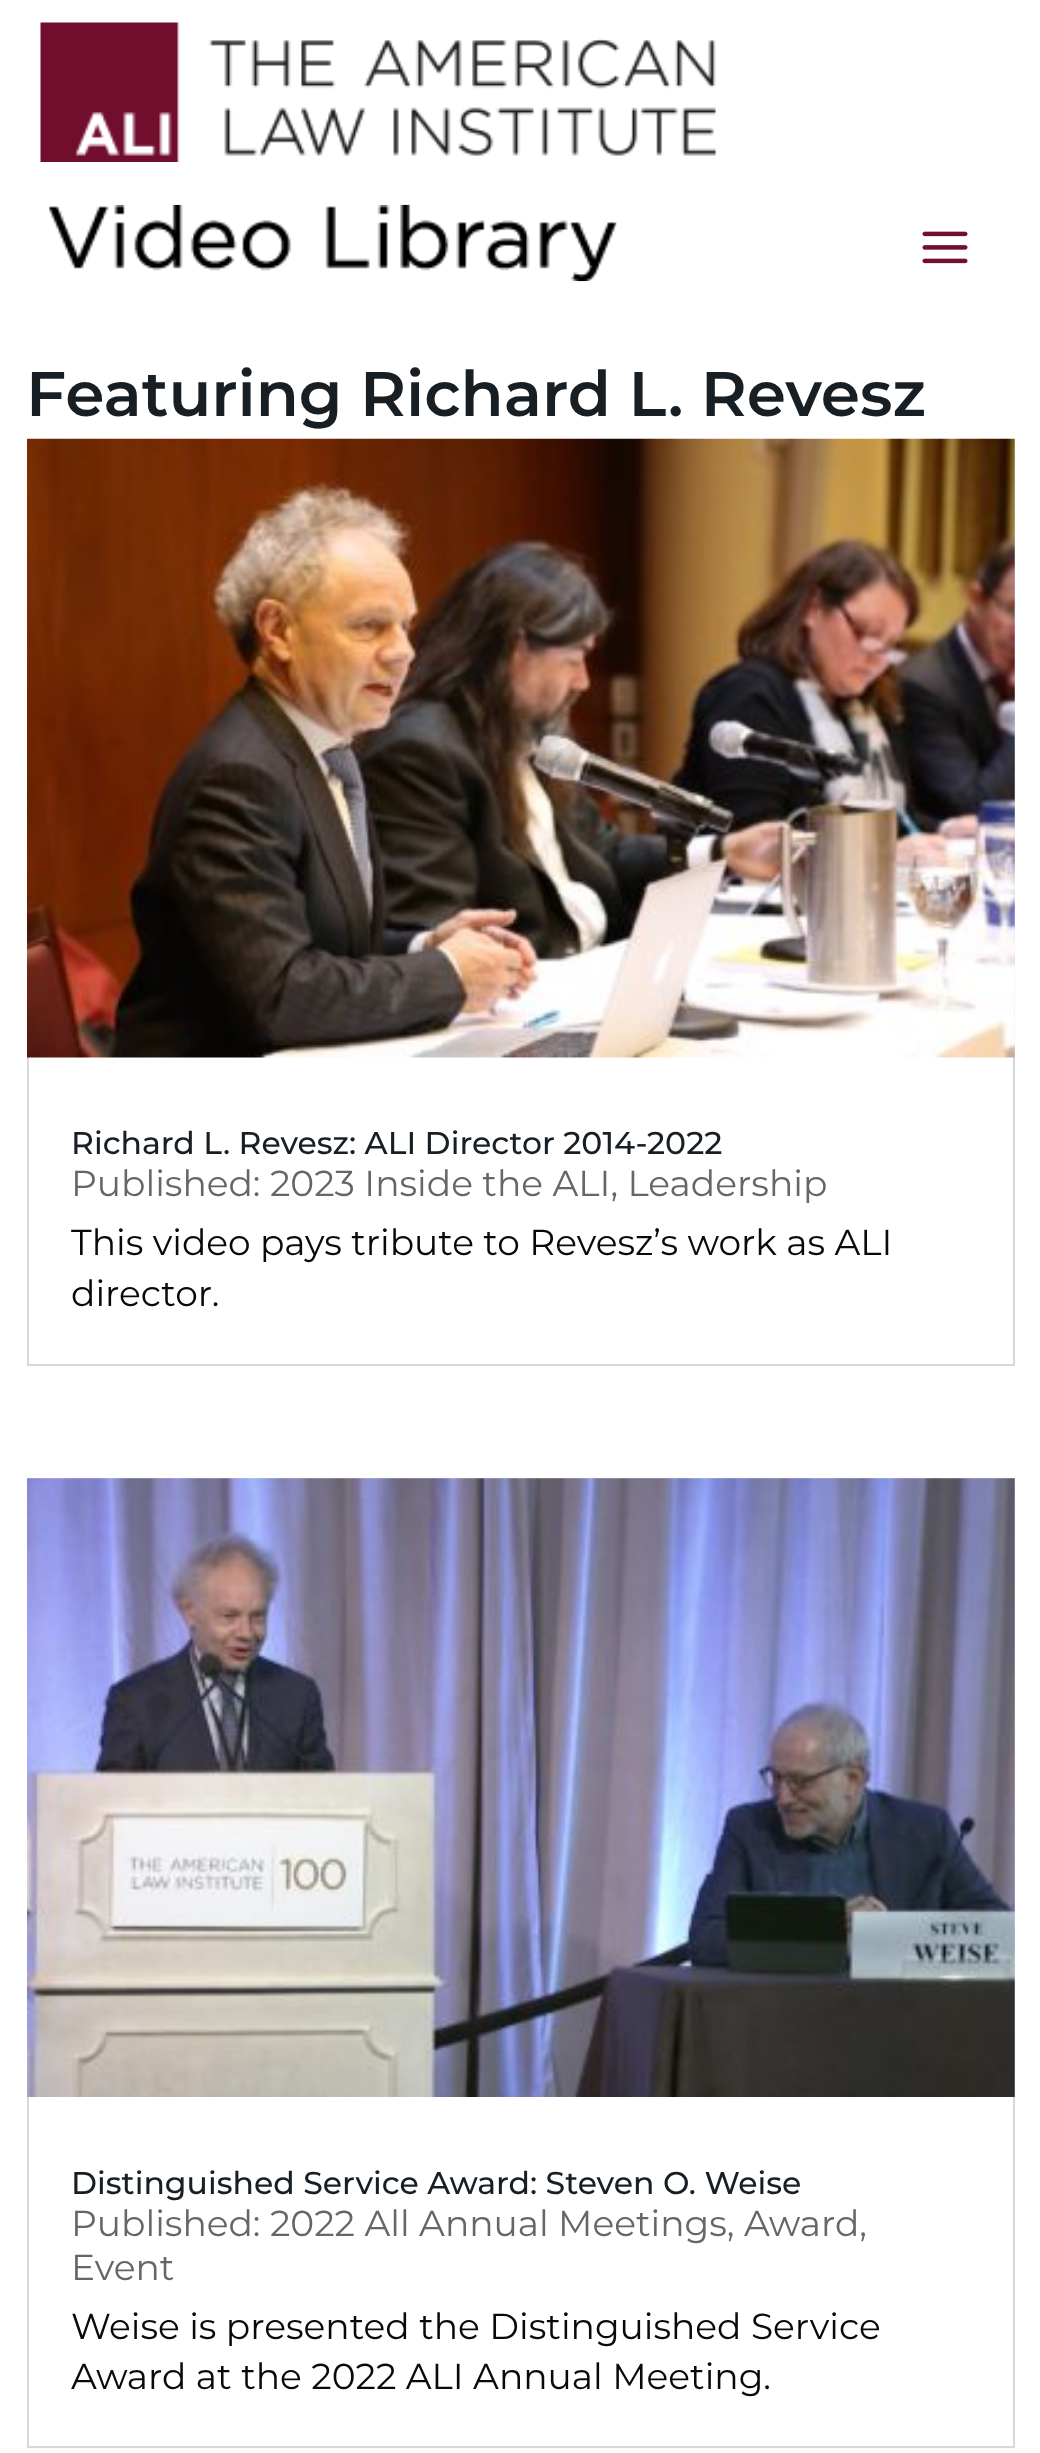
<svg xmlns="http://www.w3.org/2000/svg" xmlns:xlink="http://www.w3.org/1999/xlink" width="1040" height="2453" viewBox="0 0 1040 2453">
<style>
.cls-1{font:100 63px Montserrat;fill:#171f24}
.cls-2{font:100 31.5px 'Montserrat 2';fill:#171f24}
.cls-3{font:100 36px 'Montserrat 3';fill:#666666}
.cls-4{font:100 36px 'Montserrat 3';fill:#090909}
</style>
<rect width="100%" height="100%" fill="#ffffff"/>
<image xlink:href="image0.png" x="40" y="22" width="676" height="140"/>
<image xlink:href="image1.png" x="47" y="204" width="570" height="78"/>
<image xlink:href="image2.png" x="922" y="231" width="46" height="33"/>
<rect fill="none" stroke="#d8d8d8" stroke-width="2" x="28" y="440" width="986" height="925"/>
<image xlink:href="image3.png" x="27" y="438" width="988" height="620"/>
<rect fill="none" stroke="#d8d8d8" stroke-width="2" x="28" y="1479" width="986" height="968"/>
<image xlink:href="image4.png" x="27" y="1478" width="988" height="619"/>
<text class="cls-1" x="26" y="416">Featuring Richard L. Revesz</text>
<text class="cls-2" x="71" y="1154">Richard L. Revesz: ALI Director 2014-2022</text>
<text class="cls-3" x="71" y="1196">Published: 2023 Inside the ALI, Leadership</text>
<text class="cls-4"><tspan x="71" y="1255">This video pays tribute to Revesz’s work as ALI</tspan><tspan x="71" y="1306">director.</tspan></text>
<text class="cls-2" x="71" y="2194">Distinguished Service Award: Steven O. Weise</text>
<text class="cls-3"><tspan x="71" y="2236">Published: 2022 All Annual Meetings, Award,</tspan><tspan x="71" y="2280">Event</tspan></text>
<text class="cls-4"><tspan x="71" y="2339">Weise is presented the Distinguished Service</tspan><tspan x="71" y="2389">Award at the 2022 ALI Annual Meeting.</tspan></text>
</svg>
